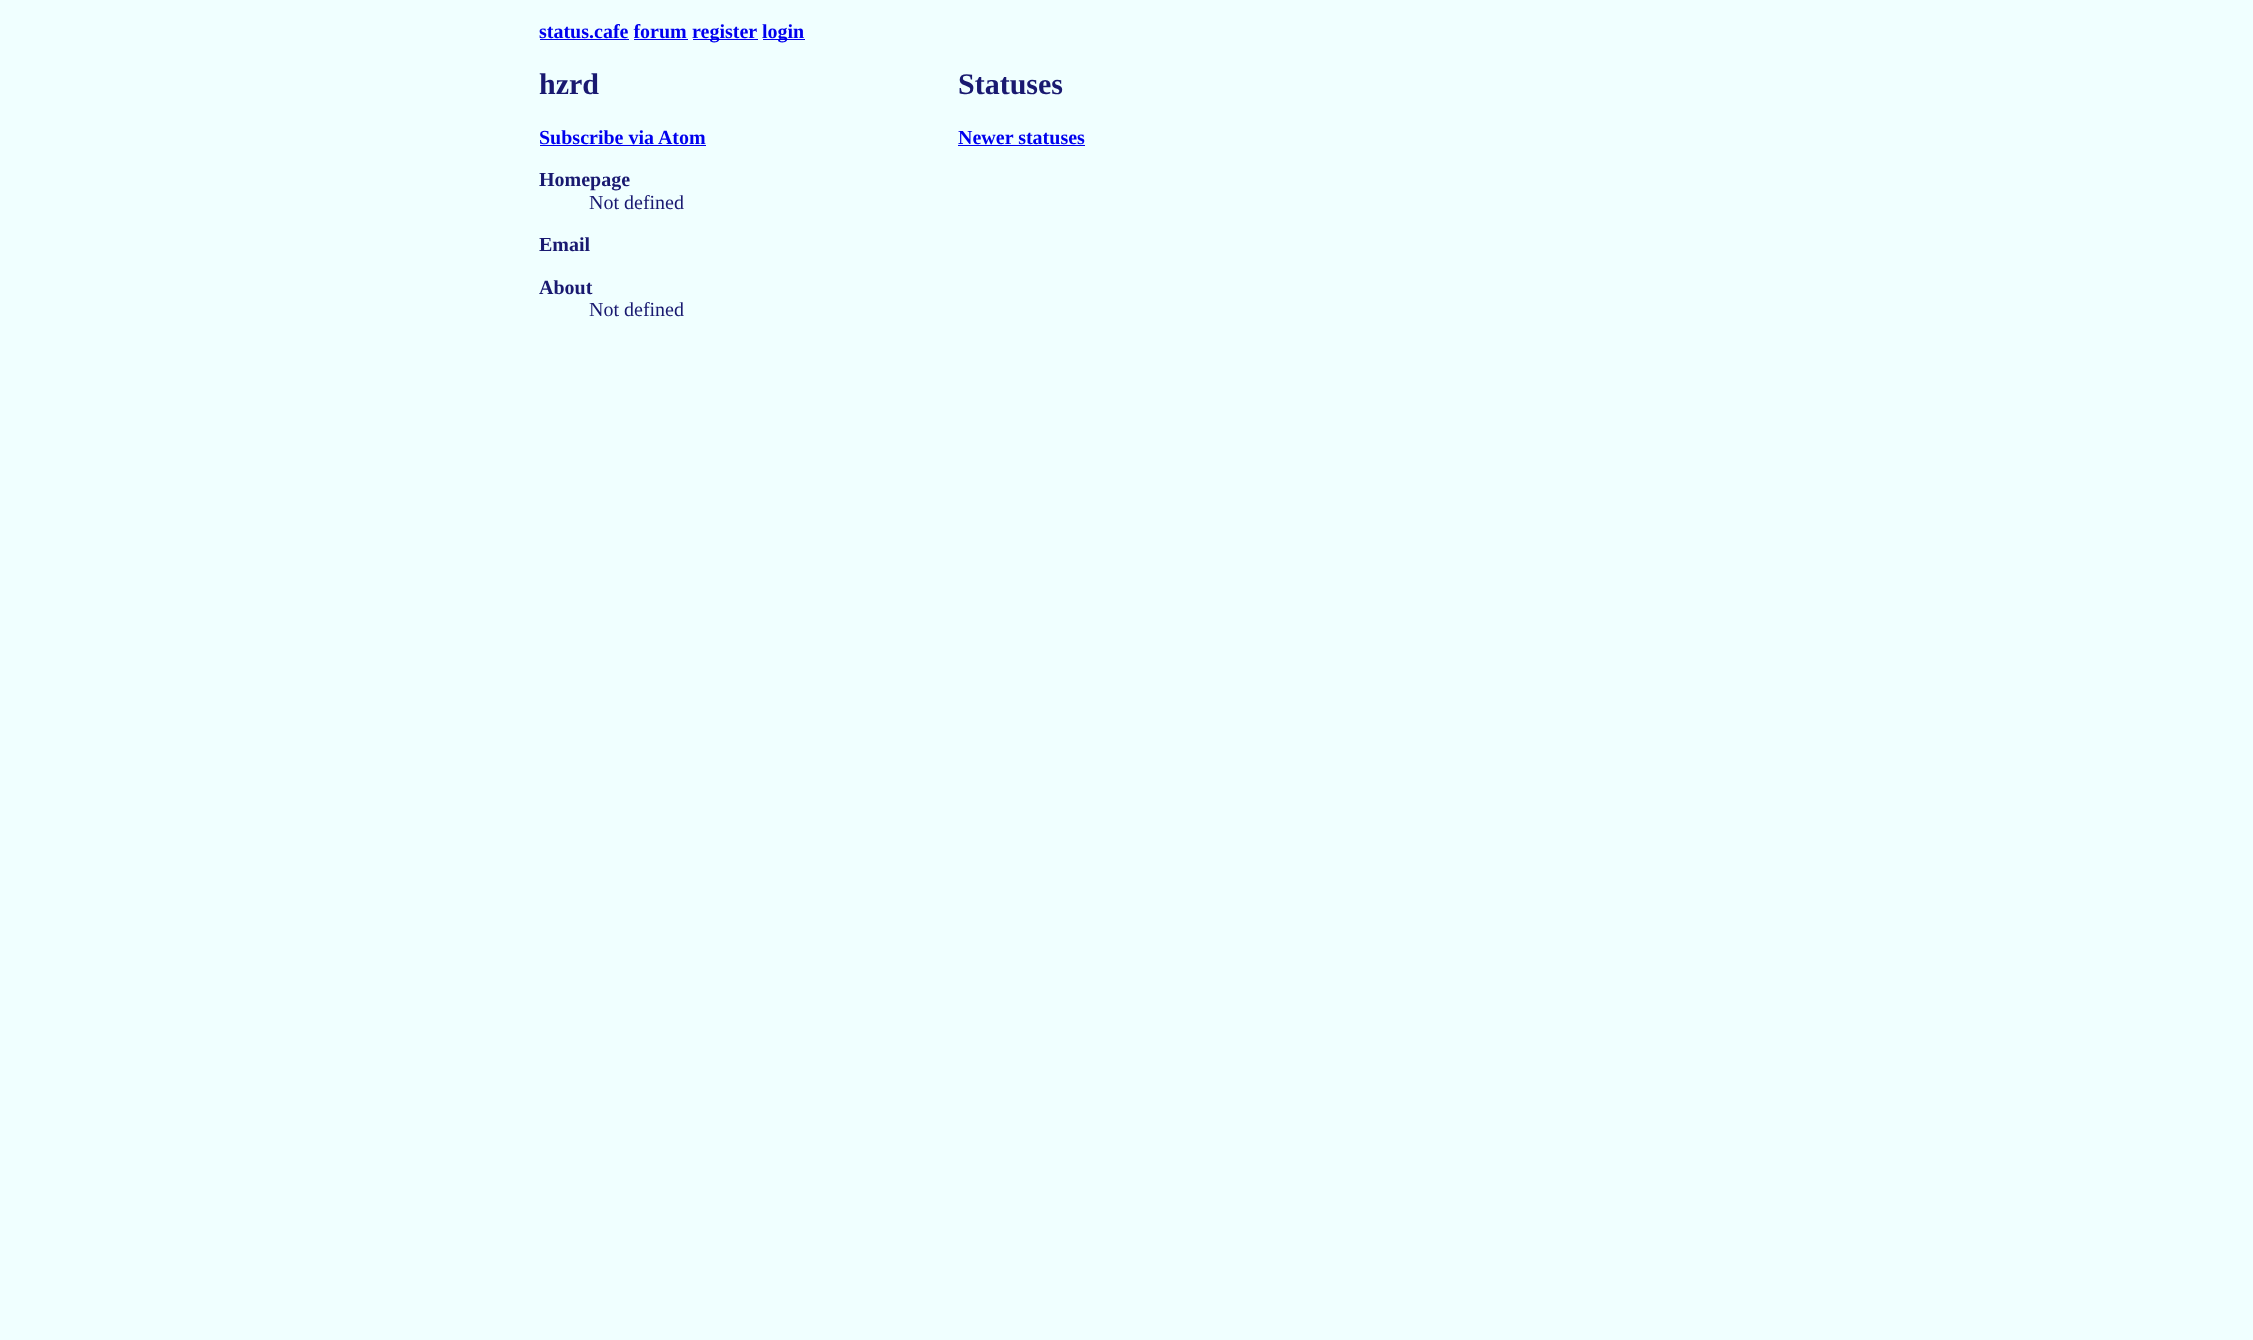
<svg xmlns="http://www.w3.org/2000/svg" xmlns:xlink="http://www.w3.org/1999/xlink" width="2253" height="1340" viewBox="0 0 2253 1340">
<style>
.cls-1{font:bold 20px Liberation Serif;fill:#0000ee}
.cls-2{font:bold 30px Liberation Serif;fill:#191970}
.cls-3{font:bold 20px Liberation Serif;fill:#191970}
.cls-4{font:20px Liberation Serif;fill:#191970}
</style>
<rect width="100%" height="100%" fill="#f0ffff"/>
<rect fill="#0000ee" x="540" y="39" width="89" height="1"/>
<rect fill="#0000ee" x="693" y="39" width="65" height="1"/>
<rect fill="#0000ee" x="763" y="39" width="42" height="1"/>
<rect fill="#0000ee" x="634" y="39" width="54" height="1"/>
<rect fill="#0000ee" x="540" y="145" width="166" height="1"/>
<rect fill="#0000ee" x="958" y="145" width="127" height="1"/>
<text class="cls-1" x="539" y="38">status.cafe forum</text>
<text class="cls-1" x="692" y="38">register</text>
<text class="cls-1" x="762" y="38">login</text>
<text class="cls-2" x="539" y="94">hzrd</text>
<text class="cls-1" x="539" y="144">Subscribe via Atom</text>
<text class="cls-3" x="539" y="186">Homepage</text>
<text class="cls-4" x="589" y="209">Not defined</text>
<text class="cls-3" x="539" y="251">Email</text>
<text class="cls-3" x="539" y="294">About</text>
<text class="cls-4" x="589" y="316">Not defined</text>
<text class="cls-2" x="958" y="94">Statuses</text>
<text class="cls-1" x="958" y="144">Newer statuses</text>
</svg>
